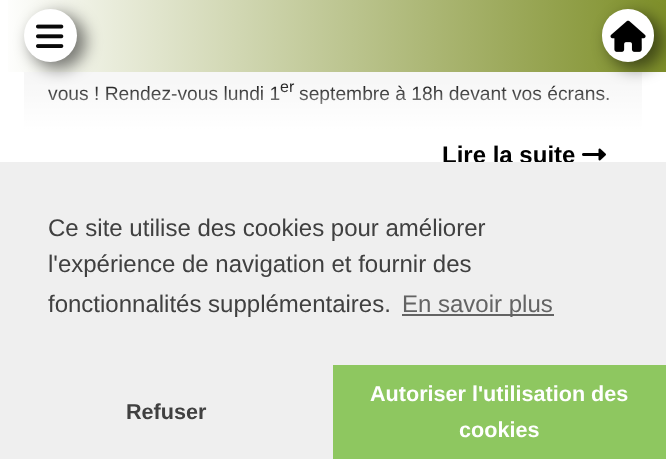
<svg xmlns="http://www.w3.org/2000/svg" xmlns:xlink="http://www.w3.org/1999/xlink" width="666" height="459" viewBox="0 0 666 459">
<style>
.cls-1{font:19.25px Liberation Sans;fill:#090909}
.cls-2{font:16px Liberation Sans;fill:#090909}
.cls-3{font:bold 24px Liberation Sans;fill:#000000}
.cls-4{font:24px Liberation Sans;fill:#404040}
.cls-5{font:24px Liberation Sans;fill:#636363}
.cls-6{font:bold 21.6px Liberation Sans;fill:#404040}
.cls-7{font:bold 21.6px Liberation Sans;fill:#ffffff}
</style>
<defs>
<linearGradient id="g1" gradientUnits="userSpaceOnUse" x1="0" y1="36" x2="666" y2="36"><stop offset="0" stop-color="#ffffff"/><stop offset="1" stop-color="#7e8f29"/></linearGradient>
<linearGradient id="g2" gradientUnits="userSpaceOnUse" x1="333" y1="129" x2="333" y2="81"><stop offset="0" stop-color="#ffffff"/><stop offset="1" stop-color="#ffffff" stop-opacity="0"/></linearGradient>
</defs>
<rect width="100%" height="100%" fill="#ffffff"/>
<rect fill="url(#g1)" x="8" y="0" width="658" height="72"/>
<rect fill="#f7f7f7" x="24" y="72" width="618" height="57"/>
<image xlink:href="image2.png" x="582" y="148" width="24" height="13"/>
<text class="cls-1" x="48" y="100">vous ! Rendez-vous lundi 1</text>
<text class="cls-2" x="280" y="92">er</text>
<text class="cls-1" x="299" y="100">septembre à 18h devant vos écrans.</text>
<rect fill="url(#g2)" x="24" y="83" width="618" height="46"/>
<rect fill="#000000" fill-opacity="0.5" filter="blur(8px)" x="608" y="14" width="55" height="55" rx="27.5"/>
<rect fill="#ffffff" x="602" y="9" width="52" height="53" rx="26"/>
<image xlink:href="image1.png" x="610" y="20" width="36" height="32"/>
<rect fill="#000000" fill-opacity="0.5" filter="blur(8px)" x="30" y="14" width="56" height="55" rx="27.5"/>
<circle fill="#ffffff" cx="50.5" cy="35.5" r="26.5"/>
<image xlink:href="image0.png" x="36" y="24" width="28" height="24"/>
<text class="cls-3" x="442" y="163">Lire la suite</text>
<rect fill="#efefef" x="0" y="162" width="666" height="297"/>
<text class="cls-4"><tspan x="48" y="236">Ce site utilise des cookies pour améliorer</tspan><tspan x="48" y="272">l'expérience de navigation et fournir des</tspan><tspan x="48" y="312">fonctionnalités supplémentaires.</tspan></text>
<rect fill="#636363" x="402" y="314" width="152" height="2"/>
<text class="cls-5" x="402" y="312">En savoir plus</text>
<text class="cls-6" x="126" y="419">Refuser</text>
<rect fill="#8ec760" x="333" y="365" width="333" height="94"/>
<text class="cls-7" x="370" y="401">Autoriser l'utilisation des</text>
<text class="cls-7" x="459" y="437">cookies</text>
</svg>
